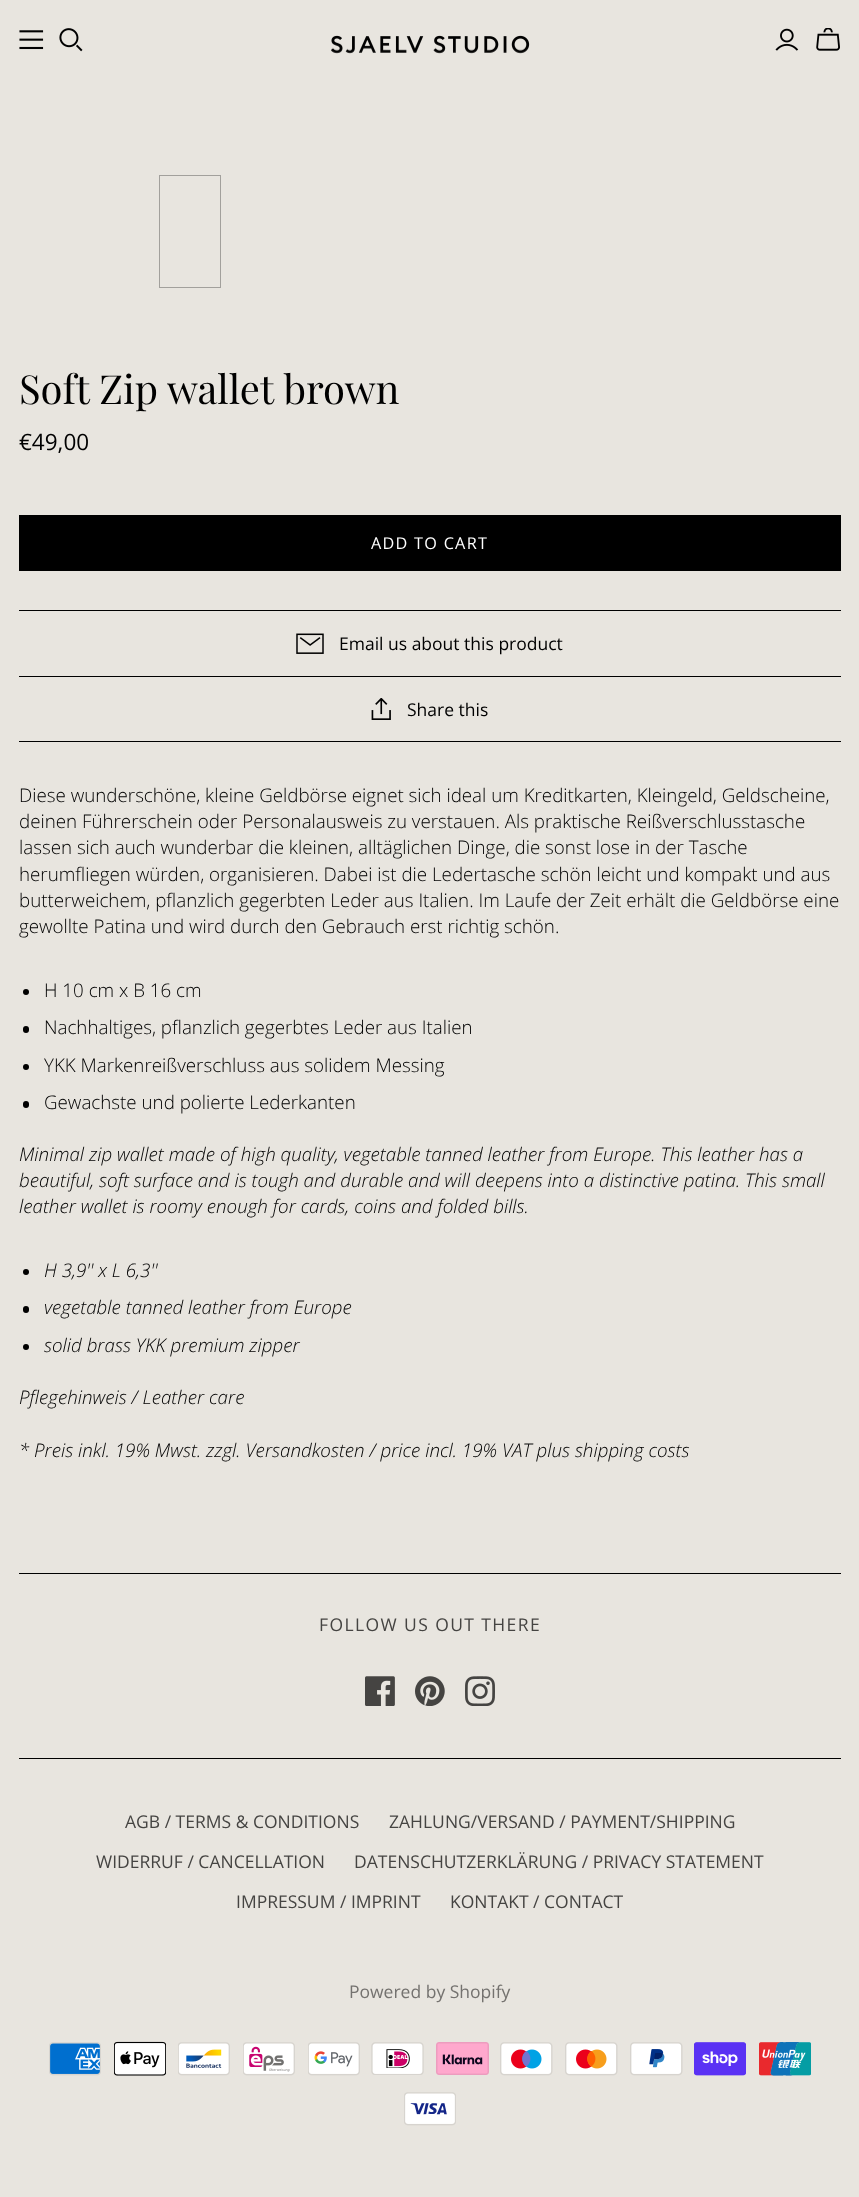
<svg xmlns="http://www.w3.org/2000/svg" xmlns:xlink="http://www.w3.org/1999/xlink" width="859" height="2197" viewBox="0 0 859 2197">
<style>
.cls-1{font:40px Playfair Display;fill:#000000}
.cls-2{font:22.5px Open Sans;fill:#000000}
.cls-3{font:16.25px Open Sans;letter-spacing:1.25px;fill:#ffffff}
.cls-4{font:17.5px Open Sans;fill:#000000}
.cls-5{font:300 18.75px Open Sans;fill:#000000}
.cls-6{font:italic 300 18.75px Open Sans;fill:#000000}
.cls-7{font:17.5px Open Sans;letter-spacing:1.4px;fill:#454442}
.cls-8{font:17.5px Open Sans;fill:#454442}
.cls-9{font:17.5px Open Sans;fill:#74726f}
</style>
<rect width="100%" height="100%" fill="#e8e5df"/>
<image xlink:href="image0.png" x="19" y="30" width="25" height="20"/>
<image xlink:href="image1.png" x="59" y="28" width="24" height="24"/>
<image xlink:href="image2.png" x="775" y="28" width="24" height="23"/>
<image xlink:href="image3.png" x="816" y="28" width="24" height="23"/>
<image xlink:href="image4.png" x="331" y="35" width="199" height="19"/>
<rect fill="none" stroke="#a2a09c" x="159.5" y="175.5" width="61" height="112"/>
<rect fill="#000000" x="19" y="515" width="822" height="56"/>
<rect fill="#000000" x="19" y="610" width="822" height="1"/>
<rect fill="#000000" x="19" y="741" width="822" height="1"/>
<image xlink:href="image5.png" x="296" y="633" width="28" height="21"/>
<rect fill="#000000" x="19" y="676" width="822" height="1"/>
<image xlink:href="image6.png" x="371" y="698" width="20" height="22"/>
<circle fill="#000000" cx="26" cy="992" r="3"/>
<rect fill="#000000" x="23" y="1026" width="6" height="7" rx="3"/>
<circle fill="#000000" cx="26" cy="1067" r="3"/>
<rect fill="#000000" x="23" y="1101" width="6" height="7" rx="3"/>
<circle fill="#000000" cx="26" cy="1272" r="3"/>
<rect fill="#000000" x="23" y="1306" width="6" height="7" rx="3"/>
<circle fill="#000000" cx="26" cy="1347" r="3"/>
<rect fill="#000000" x="19" y="1573" width="822" height="1"/>
<rect fill="#000000" x="19" y="1758" width="822" height="1"/>
<image xlink:href="image7.png" x="365" y="1676" width="30" height="30"/>
<image xlink:href="image8.png" x="415" y="1676" width="30" height="30"/>
<image xlink:href="image9.png" x="465" y="1676" width="30" height="30"/>
<image xlink:href="image10.png" x="49" y="2042" width="52" height="34"/>
<image xlink:href="image11.png" x="114" y="2041" width="52" height="35"/>
<image xlink:href="image12.png" x="178" y="2042" width="52" height="34"/>
<image xlink:href="image13.png" x="243" y="2042" width="52" height="34"/>
<image xlink:href="image14.png" x="308" y="2042" width="52" height="34"/>
<image xlink:href="image15.png" x="371" y="2042" width="53" height="33"/>
<image xlink:href="image16.png" x="436" y="2042" width="53" height="33"/>
<image xlink:href="image17.png" x="500" y="2042" width="53" height="34"/>
<image xlink:href="image18.png" x="565" y="2042" width="53" height="34"/>
<image xlink:href="image19.png" x="630" y="2042" width="53" height="34"/>
<image xlink:href="image20.png" x="694" y="2042" width="52" height="34"/>
<image xlink:href="image21.png" x="759" y="2042" width="52" height="34"/>
<image xlink:href="image22.png" x="404" y="2092" width="52" height="34"/>
<text class="cls-1" x="19" y="404">Soft Zip wallet brown</text>
<text class="cls-2" x="19" y="450">€49,00</text>
<text class="cls-3" x="371" y="549">ADD TO CART</text>
<text class="cls-4" x="339" y="650">Email us about this product</text>
<text class="cls-4" x="407" y="716">Share this</text>
<text class="cls-5"><tspan x="19" y="802">Diese wunderschöne, kleine Geldbörse eignet sich ideal um Kreditkarten, Kleingeld, Geldscheine,</tspan><tspan x="19" y="828">deinen Führerschein oder Personalausweis zu verstauen. Als praktische Reißverschlusstasche</tspan><tspan x="19" y="854">lassen sich auch wunderbar die kleinen, alltäglichen Dinge, die sonst lose in der Tasche</tspan><tspan x="19" y="881">herumfliegen würden, organisieren. Dabei ist die Ledertasche schön leicht und kompakt und aus</tspan><tspan x="19" y="907">butterweichem, pflanzlich gegerbten Leder aus Italien. Im Laufe der Zeit erhält die Geldbörse eine</tspan><tspan x="19" y="933">gewollte Patina und wird durch den Gebrauch erst richtig schön.</tspan></text>
<text class="cls-5"><tspan x="44" y="997">H 10 cm x B 16 cm</tspan><tspan x="44" y="1034">Nachhaltiges, pflanzlich gegerbtes Leder aus Italien</tspan></text>
<text class="cls-5"><tspan x="44" y="1072">YKK Markenreißverschluss aus solidem Messing</tspan><tspan x="44" y="1109">Gewachste und polierte Lederkanten</tspan></text>
<text class="cls-6"><tspan x="19" y="1161">Minimal zip wallet made of high quality, vegetable tanned leather from Europe. This leather has a</tspan><tspan x="19" y="1187">beautiful, soft surface and is tough and durable and will deepens into a distinctive patina. This small</tspan><tspan x="19" y="1213">leather wallet is roomy enough for cards, coins and folded bills.</tspan></text>
<text class="cls-6"><tspan x="44" y="1277">H 3,9'' x L 6,3''</tspan><tspan x="44" y="1314">vegetable tanned leather from Europe</tspan></text>
<text class="cls-6" x="44" y="1352">solid brass YKK premium zipper</text>
<text class="cls-6" x="19" y="1404">Pflegehinweis / Leather care</text>
<text class="cls-6" x="19" y="1457">* Preis inkl. 19% Mwst. zzgl. Versandkosten / price incl. 19% VAT plus shipping costs</text>
<text class="cls-7" x="319" y="1631">FOLLOW US OUT THERE</text>
<text class="cls-8" x="125" y="1828">AGB / TERMS &amp; CONDITIONS</text>
<text class="cls-8" x="389" y="1828">ZAHLUNG/VERSAND / PAYMENT/SHIPPING</text>
<text class="cls-8" x="96" y="1868">WIDERRUF / CANCELLATION</text>
<text class="cls-8" x="354" y="1868">DATENSCHUTZERKLÄRUNG / PRIVACY STATEMENT</text>
<text class="cls-8" x="236" y="1908">IMPRESSUM / IMPRINT</text>
<text class="cls-8" x="450" y="1908">KONTAKT / CONTACT</text>
<text class="cls-9" x="349" y="1998">Powered by Shopify</text>
</svg>
